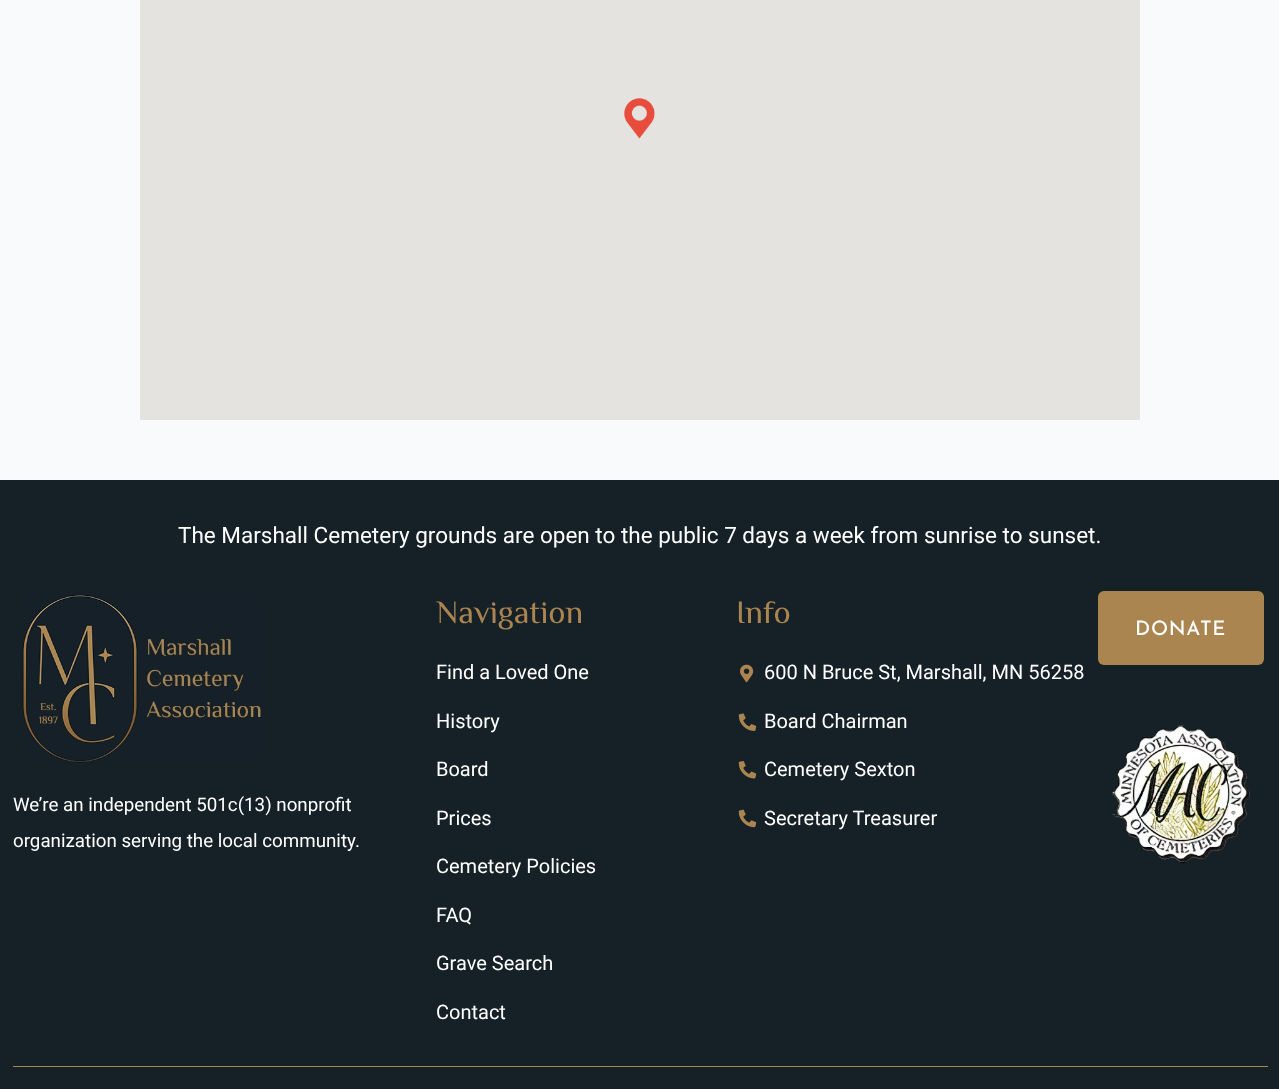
<svg xmlns="http://www.w3.org/2000/svg" xmlns:xlink="http://www.w3.org/1999/xlink" width="1279" height="1089" viewBox="0 0 1279 1089">
<style>
.cls-1{font:22.5px Roboto;fill:#ffffff}
.cls-2{font:32.5px ZCOOL XiaoWei;fill:#aa854f}
.cls-3{font:20px Roboto;fill:#ffffff}
.cls-4{font:500 20px Josefin Sans;letter-spacing:0.75px;fill:#ffffff}
.cls-5{font:18.75px Roboto;fill:#ffffff}
</style>
<rect width="100%" height="100%" fill="#f9fafb"/>
<rect fill="#e5e3df" x="140" y="0" width="1000" height="420"/>
<image xlink:href="image0.png" x="624" y="98" width="31" height="41"/>
<rect fill="#162027" x="0" y="480" width="1279" height="609"/>
<image xlink:href="image1.png" x="740" y="664" width="14" height="19"/>
<image xlink:href="image2.png" x="738" y="713" width="19" height="18"/>
<image xlink:href="image3.png" x="738" y="761" width="19" height="18"/>
<image xlink:href="image4.png" x="738" y="809" width="19" height="19"/>
<rect fill="#aa854f" x="1098" y="591" width="166" height="74" rx="6"/>
<image xlink:href="image5.png" x="1112" y="724" width="138" height="139"/>
<image xlink:href="image6.png" x="22" y="594" width="240" height="169"/>
<rect fill="#aa854f" x="13" y="1066" width="1255" height="1"/>
<text class="cls-1" x="178" y="543">The Marshall Cemetery grounds are open to the public 7 days a week from sunrise to sunset.</text>
<text class="cls-2" x="436" y="623">Navigation</text>
<text class="cls-3" x="436" y="679">Find a Loved One</text>
<text class="cls-3" x="436" y="728">History</text>
<text class="cls-3" x="436" y="776">Board</text>
<text class="cls-3" x="436" y="825">Prices</text>
<text class="cls-3" x="436" y="873">Cemetery Policies</text>
<text class="cls-3" x="436" y="922">FAQ</text>
<text class="cls-3" x="436" y="970">Grave Search</text>
<text class="cls-3" x="436" y="1019">Contact</text>
<text class="cls-2" x="736" y="623">Info</text>
<text class="cls-3" x="764" y="679">600 N Bruce St, Marshall, MN 56258</text>
<text class="cls-3" x="764" y="728">Board Chairman</text>
<text class="cls-3" x="764" y="776">Cemetery Sexton</text>
<text class="cls-3" x="764" y="825">Secretary Treasurer</text>
<text class="cls-4" x="1135" y="635">DONATE</text>
<text class="cls-5"><tspan x="13" y="811">We’re an independent 501c(13) nonprofit</tspan><tspan x="13" y="847">organization serving the local community.</tspan></text>
</svg>
